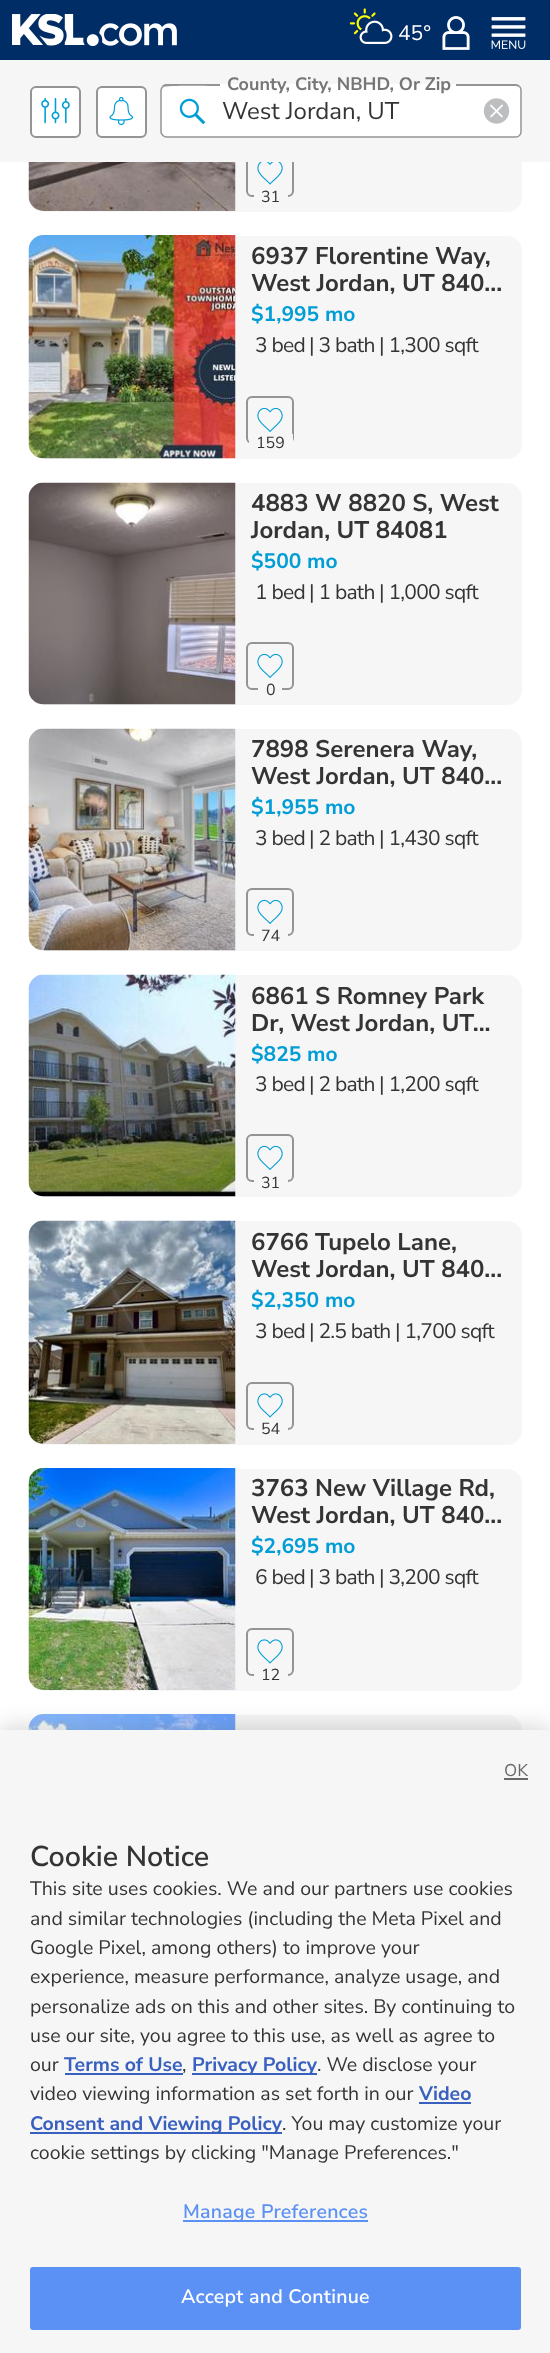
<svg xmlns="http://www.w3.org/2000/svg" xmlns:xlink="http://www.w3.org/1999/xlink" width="550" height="2353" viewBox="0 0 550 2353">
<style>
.cls-1{font:21px Nunito Sans;fill:#ffffff}
.cls-2{font:bold 18px Nunito Sans;fill:#767676}
.cls-3{font:24px Nunito Sans;fill:#343434}
.cls-4{font:16px Nunito Sans;fill:#343434}
.cls-5{font:bold 24px Nunito Sans;fill:#343434}
.cls-6{font:bold 21px Nunito Sans;fill:#009dd6}
.cls-7{font:21px Nunito Sans;letter-spacing:-0.75px;fill:#343434}
.cls-8{font:17px 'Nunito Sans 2';fill:#696969}
.cls-9{font:600 28.75px Nunito Sans;fill:#343434}
.cls-10{font:19.5px Nunito Sans;fill:#343434}
.cls-11{font:bold 19.5px Nunito Sans;fill:#3860be}
.cls-12{font:600 19.5px Nunito Sans;letter-spacing:0.25px;fill:#5b91f4}
.cls-13{font:600 19.5px Nunito Sans;letter-spacing:0.25px;fill:#ffffff}
</style>
<rect width="100%" height="100%" fill="#ffffff"/>
<rect fill="#f6f6f6" x="29" y="-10" width="493" height="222" rx="15"/>
<rect fill="#002d65" x="0" y="0" width="550" height="60"/>
<image xlink:href="image0.png" x="12" y="14" width="165" height="33"/>
<image xlink:href="image1.png" x="349" y="8" width="44" height="36"/>
<image xlink:href="image2.png" x="442" y="16" width="28" height="34"/>
<image xlink:href="image3.png" x="491" y="17" width="35" height="32"/>
<rect fill="none" stroke="#949494" stroke-width="2" x="247" y="150" width="46" height="46" rx="5"/>
<rect fill="#f6f6f6" x="0" y="60" width="550" height="102"/>
<rect fill="#ffffff" stroke="#949494" stroke-width="2" x="31" y="87" width="49" height="50" rx="5"/>
<image xlink:href="image4.png" x="41" y="97" width="29" height="27"/>
<rect fill="#ffffff" stroke="#949494" stroke-width="2" x="97" y="87" width="49" height="50" rx="5"/>
<image xlink:href="image5.png" x="109" y="96" width="25" height="30"/>
<rect fill="#ffffff" x="161" y="84" width="361" height="54" rx="6"/>
<path fill="none" stroke="#949494" stroke-width="1.5" d="M519.5 86.5C520.5 87.5 521 88.5 521 90V132C521 133.5 520.5 134.5 519.5 135.5C518.5 136.5 517.5 137 516 137H166.5C165 137 164 136.5 163 135.5C162 134.5 161 133.5 161 132V90C161 88.5 162 87.5 163 86.5"/>
<path fill="#949494" d="M166 84C164 84 163 85 162 86L163 87C166 85 213 86 220 86V84Z"/>
<path fill="#949494" d="M456 84V86H516L519 87L520 86C519 85 518 84 516 84Z"/>
<image xlink:href="image6.png" x="179" y="98" width="27" height="27"/>
<image xlink:href="image7.png" x="483" y="98" width="27" height="26"/>
<image xlink:href="image8.png" x="28" y="162" width="208" height="49"/>
<image xlink:href="image9.png" x="257" y="162" width="26" height="23"/>
<rect fill="#f6f6f6" x="254" y="195" width="34" height="2"/>
<rect fill="#f6f6f6" x="29" y="236" width="493" height="223" rx="15"/>
<image xlink:href="image10.png" x="28" y="235" width="208" height="224"/>
<rect fill="none" stroke="#949494" stroke-width="2" x="247" y="397" width="46" height="46" rx="5"/>
<image xlink:href="image11.png" x="257" y="407" width="26" height="25"/>
<rect fill="#f6f6f6" x="249" y="434" width="44" height="10"/>
<rect fill="#f6f6f6" x="29" y="483" width="493" height="222" rx="15"/>
<image xlink:href="image12.png" x="28" y="482" width="208" height="223"/>
<rect fill="none" stroke="#949494" stroke-width="2" x="247" y="643" width="46" height="46" rx="5"/>
<image xlink:href="image11.png" x="257" y="653" width="26" height="25"/>
<rect fill="#f6f6f6" x="258" y="688" width="24" height="2"/>
<rect fill="#f6f6f6" x="29" y="729" width="493" height="222" rx="15"/>
<image xlink:href="image13.png" x="28" y="728" width="208" height="223"/>
<rect fill="none" stroke="#949494" stroke-width="2" x="247" y="889" width="46" height="46" rx="5"/>
<image xlink:href="image11.png" x="257" y="899" width="26" height="25"/>
<rect fill="#f6f6f6" x="254" y="934" width="34" height="2"/>
<rect fill="#f6f6f6" x="29" y="975" width="493" height="222" rx="15"/>
<image xlink:href="image14.png" x="28" y="974" width="208" height="223"/>
<rect fill="none" stroke="#949494" stroke-width="2" x="247" y="1135" width="46" height="46" rx="5"/>
<image xlink:href="image11.png" x="257" y="1145" width="26" height="25"/>
<rect fill="#f6f6f6" x="254" y="1180" width="34" height="2"/>
<rect fill="#f6f6f6" x="29" y="1221" width="493" height="224" rx="15"/>
<image xlink:href="image15.png" x="28" y="1220" width="208" height="224"/>
<rect fill="none" stroke="#949494" stroke-width="2" x="247" y="1383" width="46" height="46" rx="5"/>
<image xlink:href="image16.png" x="257" y="1393" width="26" height="25"/>
<rect fill="#f6f6f6" x="254" y="1428" width="34" height="2"/>
<rect fill="#f6f6f6" x="29" y="1469" width="493" height="222" rx="15"/>
<image xlink:href="image17.png" x="28" y="1468" width="208" height="222"/>
<rect fill="none" stroke="#949494" stroke-width="2" x="247" y="1629" width="46" height="46" rx="5"/>
<image xlink:href="image16.png" x="257" y="1639" width="26" height="25"/>
<rect fill="#f6f6f6" x="254" y="1674" width="34" height="2"/>
<rect fill="#f6f6f6" x="29" y="1715" width="493" height="222" rx="15"/>
<image xlink:href="image18.png" x="28" y="1714" width="208" height="16"/>
<rect fill="#000000" fill-opacity="0.2" filter="blur(13.5px)" x="0" y="1730" width="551" height="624"/>
<rect fill="#f6f6f6" x="0" y="1730" width="550" height="623"/>
<rect fill="#696969" x="504" y="1778" width="24" height="2"/>
<rect fill="#3860be" x="65" y="2073" width="118" height="2"/>
<rect fill="#3860be" x="192" y="2073" width="125" height="2"/>
<rect fill="#3860be" x="419" y="2102" width="52" height="2"/>
<rect fill="#3860be" x="30" y="2132" width="252" height="2"/>
<rect fill="#5b91f4" x="183" y="2220" width="185" height="2"/>
<rect fill="#5b91f4" stroke="#5b91f4" stroke-width="2" x="31" y="2268" width="489" height="61" rx="2"/>
<text class="cls-1" x="398" y="40">45°</text>
<text class="cls-2" x="227" y="90">County, City, NBHD, Or Zip</text>
<text class="cls-3" x="222" y="119">West Jordan, UT</text>
<text class="cls-4" x="261" y="202">31</text>
<text class="cls-5"><tspan x="251" y="264">6937 Florentine Way,</tspan><tspan x="251" y="291">West Jordan, UT 840...</tspan></text>
<text class="cls-6" x="251" y="321">$1,995 mo</text>
<text class="cls-7" x="255" y="352">3 bed</text>
<text class="cls-7" x="309" y="352">| 3 bath</text>
<text class="cls-7" x="379" y="352">| 1,300 sqft</text>
<text class="cls-4" x="256" y="448">159</text>
<text class="cls-5"><tspan x="251" y="511">4883 W 8820 S, West</tspan><tspan x="251" y="538">Jordan, UT 84081</tspan></text>
<text class="cls-6" x="251" y="568">$500 mo</text>
<text class="cls-7" x="255" y="599">1 bed</text>
<text class="cls-7" x="309" y="599">| 1 bath</text>
<text class="cls-7" x="379" y="599">| 1,000 sqft</text>
<text class="cls-4" x="266" y="695">0</text>
<text class="cls-5"><tspan x="251" y="757">7898 Serenera Way,</tspan><tspan x="251" y="784">West Jordan, UT 840...</tspan></text>
<text class="cls-6" x="251" y="814">$1,955 mo</text>
<text class="cls-7" x="255" y="845">3 bed</text>
<text class="cls-7" x="309" y="845">| 2 bath</text>
<text class="cls-7" x="379" y="845">| 1,430 sqft</text>
<text class="cls-4" x="261" y="941">74</text>
<text class="cls-5"><tspan x="251" y="1004">6861 S Romney Park</tspan><tspan x="251" y="1031">Dr, West Jordan, UT...</tspan></text>
<text class="cls-6" x="251" y="1061">$825 mo</text>
<text class="cls-7" x="255" y="1091">3 bed</text>
<text class="cls-7" x="309" y="1091">| 2 bath</text>
<text class="cls-7" x="379" y="1091">| 1,200 sqft</text>
<text class="cls-4" x="261" y="1188">31</text>
<text class="cls-5"><tspan x="251" y="1250">6766 Tupelo Lane,</tspan><tspan x="251" y="1277">West Jordan, UT 840...</tspan></text>
<text class="cls-6" x="251" y="1307">$2,350 mo</text>
<text class="cls-7" x="255" y="1338">3 bed</text>
<text class="cls-7" x="309" y="1338">| 2.5 bath</text>
<text class="cls-7" x="395" y="1338">| 1,700 sqft</text>
<text class="cls-4" x="261" y="1434">54</text>
<text class="cls-5"><tspan x="251" y="1496">3763 New Village Rd,</tspan><tspan x="251" y="1523">West Jordan, UT 840...</tspan></text>
<text class="cls-6" x="251" y="1553">$2,695 mo</text>
<text class="cls-7" x="255" y="1584">6 bed</text>
<text class="cls-7" x="309" y="1584">| 3 bath</text>
<text class="cls-7" x="379" y="1584">| 3,200 sqft</text>
<text class="cls-4" x="261" y="1680">12</text>
<text class="cls-8" x="504" y="1776">OK</text>
<text class="cls-9" x="30" y="1866">Cookie Notice</text>
<text class="cls-10"><tspan x="30" y="1895">This site uses cookies. We and our partners use cookies</tspan><tspan x="30" y="1925">and similar technologies (including the Meta Pixel and</tspan><tspan x="30" y="1954">Google Pixel, among others) to improve your</tspan><tspan x="30" y="1983">experience, measure performance, analyze usage, and</tspan><tspan x="30" y="2013">personalize ads on this and other sites. By continuing to</tspan><tspan x="30" y="2042">use our site, you agree to this use, as well as agree to</tspan><tspan x="30" y="2071">our</tspan></text>
<text class="cls-11" x="64" y="2071">Terms of Use</text>
<text class="cls-10" x="182" y="2071">,</text>
<text class="cls-11" x="192" y="2071">Privacy Policy</text>
<text class="cls-10" x="317" y="2071">. We disclose your</text>
<text class="cls-10" x="30" y="2100">video viewing information as set forth in our</text>
<text class="cls-11" x="419" y="2100">Video</text>
<text class="cls-11" x="30" y="2130">Consent and Viewing Policy</text>
<text class="cls-10" x="282" y="2130">. You may customize your</text>
<text class="cls-10" x="30" y="2159">cookie settings by clicking "Manage Preferences."</text>
<text class="cls-12" x="183" y="2218">Manage Preferences</text>
<text class="cls-13" x="181" y="2303">Accept and Continue</text>
</svg>
